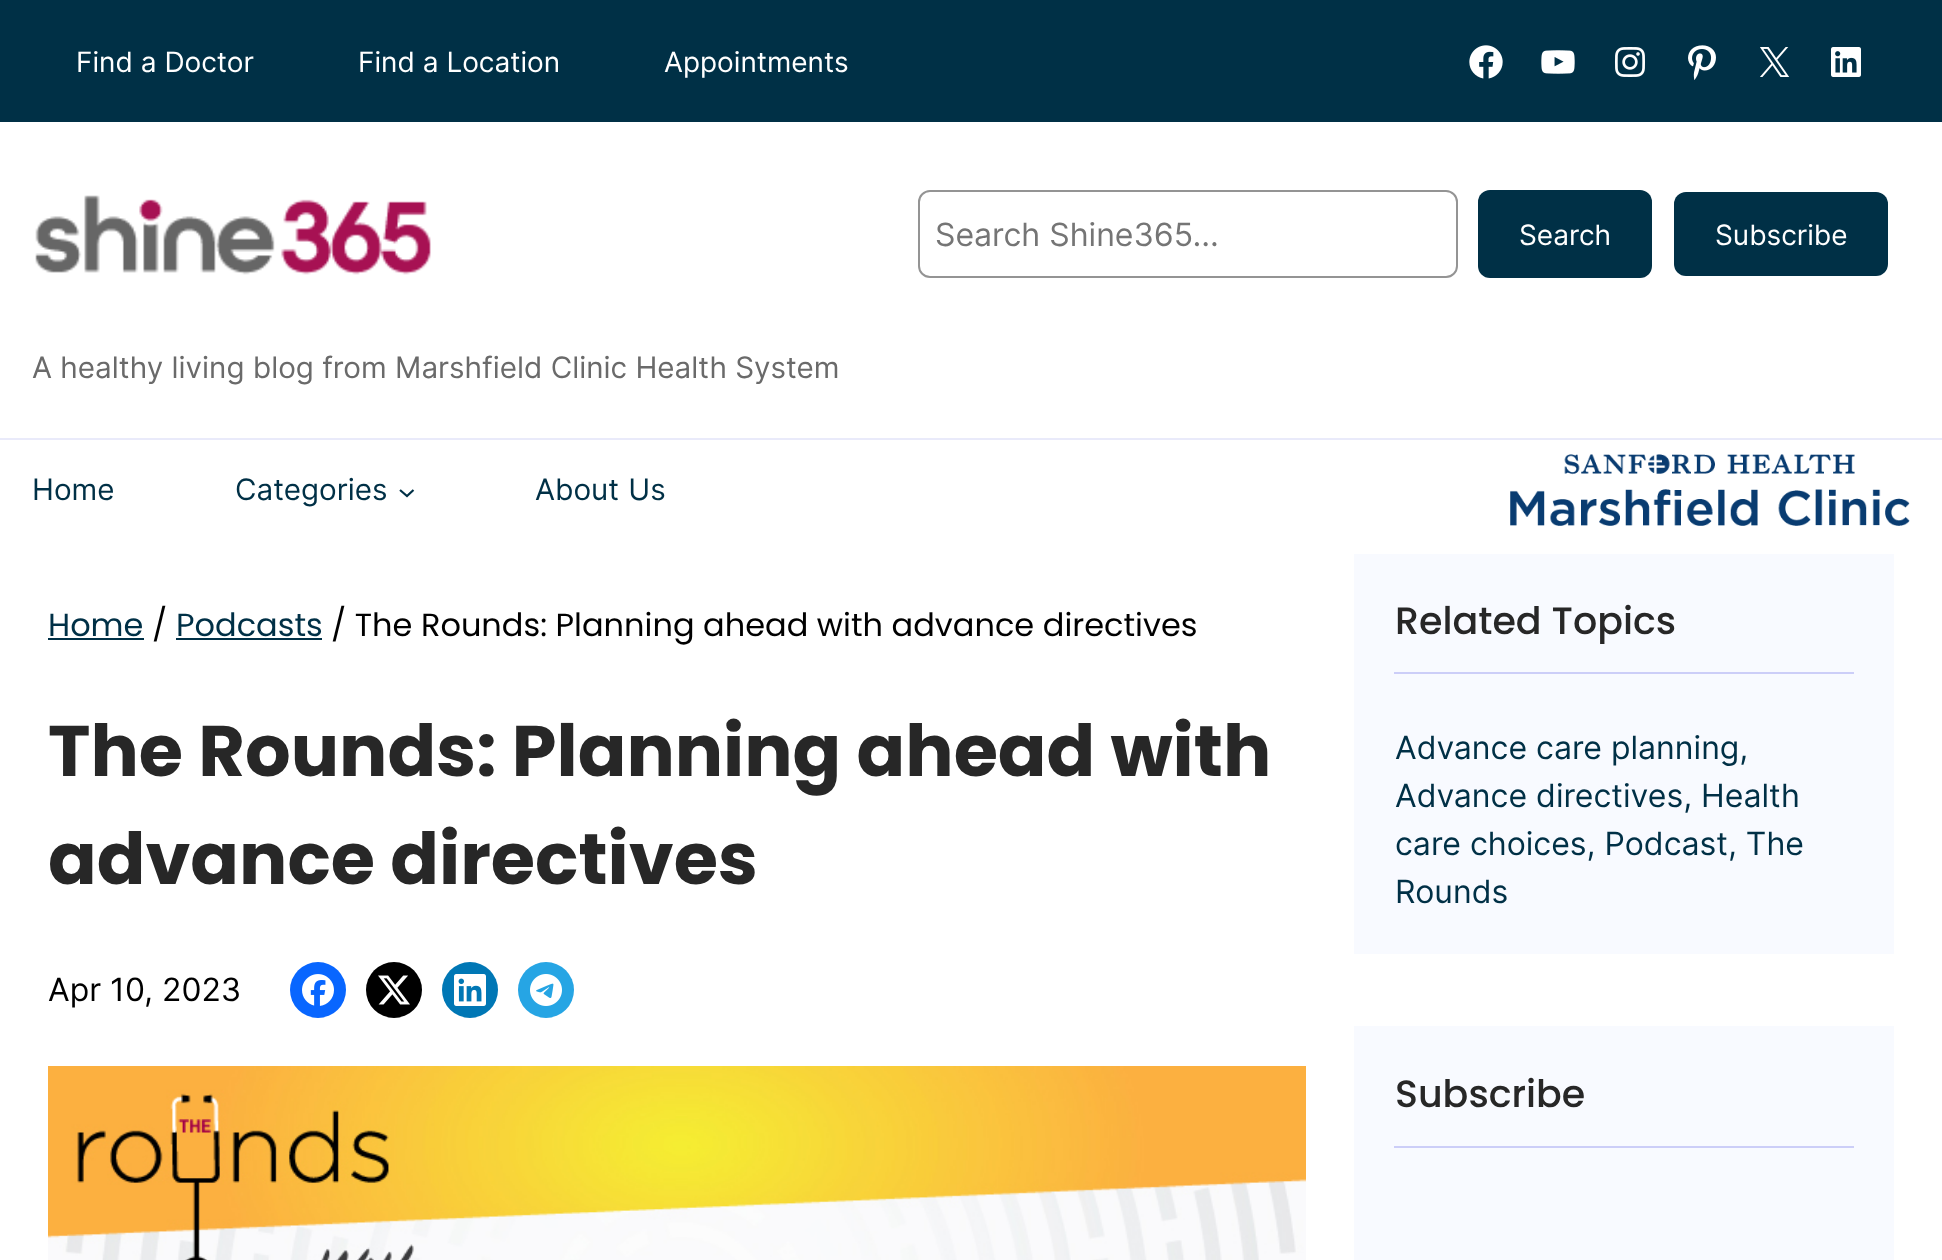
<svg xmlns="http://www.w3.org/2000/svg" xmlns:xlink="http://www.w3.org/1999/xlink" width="1942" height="1260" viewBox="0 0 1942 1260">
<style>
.cls-1{font:28px Inter;fill:#ffffff}
.cls-2{font:32px Inter;fill:#757575}
.cls-3{font:29.6px Inter;fill:#6a6a6a}
.cls-4{font:29.6px Inter;fill:#003046}
.cls-5{font:32px Poppins;fill:#003046}
.cls-6{font:32px Poppins;fill:#000000}
.cls-7{font:bold 71.75px Poppins;fill:#272727}
.cls-8{font:32px Inter;fill:#000000}
.cls-9{font:500 38px Poppins;fill:#272727}
.cls-10{font:32px Inter;fill:#003046}
</style>
<rect width="100%" height="100%" fill="#ffffff"/>
<rect fill="#003046" x="0" y="0" width="1942" height="122"/>
<image xlink:href="image0.png" x="1469" y="45" width="34" height="34"/>
<image xlink:href="image1.png" x="1541" y="50" width="34" height="24"/>
<image xlink:href="image2.png" x="1615" y="47" width="30" height="30"/>
<image xlink:href="image3.png" x="1688" y="45" width="28" height="35"/>
<image xlink:href="image4.png" x="1760" y="47" width="30" height="30"/>
<image xlink:href="image5.png" x="1831" y="47" width="30" height="30"/>
<image xlink:href="image6.png" x="35" y="195" width="396" height="80"/>
<rect fill="none" stroke="#949494" stroke-width="2" x="919" y="191" width="538" height="86" rx="11"/>
<rect fill="#003046" x="1478" y="190" width="174" height="88" rx="12"/>
<rect fill="#003046" x="1674" y="192" width="214" height="84" rx="12"/>
<rect fill="#e9eafa" x="0" y="438" width="1942" height="2"/>
<path fill="none" stroke="#003046" stroke-width="2.2" d="M400 490L407 496L413.5 490"/>
<image xlink:href="image7.png" x="1510" y="454" width="400" height="72"/>
<rect fill="#003046" x="48" y="638" width="96" height="2"/>
<rect fill="#003046" x="176" y="638" width="146" height="2"/>
<circle fill="#0866ff" cx="318" cy="990" r="28"/>
<image xlink:href="image8.png" x="302" y="974" width="32" height="32"/>
<circle fill="#000000" cx="394" cy="990" r="28"/>
<image xlink:href="image9.png" x="378" y="975" width="32" height="30"/>
<circle fill="#0077b5" cx="470" cy="990" r="28"/>
<image xlink:href="image10.png" x="454" y="974" width="32" height="32"/>
<circle fill="#26a5e4" cx="546" cy="990" r="28"/>
<image xlink:href="image11.png" x="530" y="974" width="32" height="32"/>
<image xlink:href="image12.png" x="48" y="1066" width="1258" height="194"/>
<rect fill="#f8faff" x="1354" y="554" width="540" height="400"/>
<rect fill="#cccef8" x="1394" y="672" width="460" height="2"/>
<rect fill="#f8faff" x="1354" y="1026" width="540" height="234"/>
<rect fill="#cccef8" x="1394" y="1146" width="460" height="2"/>
<text class="cls-1" x="76" y="72">Find a Doctor</text>
<text class="cls-1" x="358" y="72">Find a Location</text>
<text class="cls-1" x="664" y="72">Appointments</text>
<text class="cls-2" x="935" y="246">Search Shine365...</text>
<text class="cls-1" x="1519" y="245">Search</text>
<text class="cls-1" x="1715" y="245">Subscribe</text>
<text class="cls-3" x="32" y="378">A healthy living blog from Marshfield Clinic Health System</text>
<text class="cls-4" x="32" y="500">Home</text>
<text class="cls-4" x="235" y="500">Categories</text>
<text class="cls-4" x="535" y="500" word-spacing="1">About Us</text>
<text class="cls-5" x="48" y="636">Home</text>
<text class="cls-6" x="152" y="636">/</text>
<text class="cls-5" x="176" y="636">Podcasts</text>
<text class="cls-6" x="331" y="636">/ The Rounds: Planning ahead with advance directives</text>
<text class="cls-7"><tspan x="48" y="776">The Rounds: Planning ahead with</tspan><tspan x="48" y="884">advance directives</tspan></text>
<text class="cls-8" x="48" y="1001">Apr 10, 2023</text>
<text class="cls-9" x="1395" y="634">Related Topics</text>
<text class="cls-10"><tspan x="1395" y="759">Advance care planning,</tspan><tspan x="1395" y="807">Advance directives, Health</tspan><tspan x="1395" y="855">care choices, Podcast, The</tspan><tspan x="1395" y="903">Rounds</tspan></text>
<text class="cls-9" x="1395" y="1107">Subscribe</text>
</svg>
